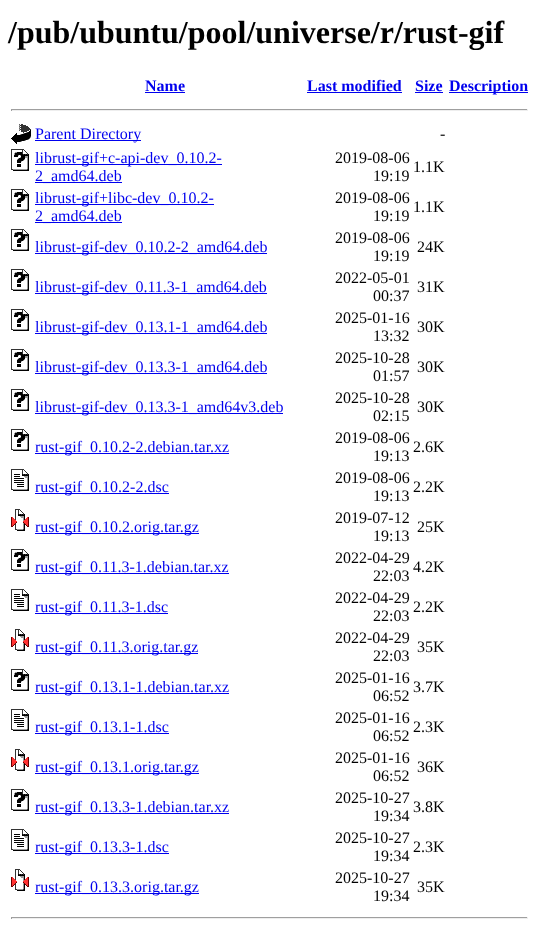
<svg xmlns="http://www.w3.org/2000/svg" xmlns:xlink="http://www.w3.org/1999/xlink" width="539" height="928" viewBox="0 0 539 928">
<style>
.cls-1{font:bold 32px Liberation Serif;fill:#000000}
.cls-2{font:bold 16px Liberation Serif;fill:#0000ee}
.cls-3{font:16px Liberation Serif;fill:#0000ee}
.cls-4{font:16px Liberation Serif;fill:#000000}
</style>
<rect width="100%" height="100%" fill="#ffffff"/>
<rect fill="#0000ee" x="145" y="92" width="40" height="1"/>
<rect fill="#0000ee" x="307" y="92" width="95" height="1"/>
<rect fill="#0000ee" x="415" y="92" width="28" height="1"/>
<rect fill="#0000ee" x="449" y="92" width="79" height="1"/>
<rect fill="#9f9f9f" x="11" y="109" width="517" height="1"/>
<rect fill="#eeeeee" x="527" y="109" width="1" height="2"/>
<rect fill="#eeeeee" x="11" y="110" width="517" height="1"/>
<rect fill="#9f9f9f" x="11" y="109" width="1" height="2"/>
<image xlink:href="image0.png" x="11" y="124" width="20" height="20"/>
<rect fill="#0000ee" x="35" y="140" width="106" height="1"/>
<image xlink:href="image1.png" x="11" y="149" width="18" height="22"/>
<rect fill="#0000ee" x="35" y="164" width="187" height="1"/>
<rect fill="#0000ee" x="35" y="182" width="87" height="1"/>
<image xlink:href="image1.png" x="11" y="189" width="18" height="22"/>
<rect fill="#0000ee" x="35" y="204" width="179" height="1"/>
<rect fill="#0000ee" x="35" y="222" width="87" height="1"/>
<image xlink:href="image1.png" x="11" y="229" width="18" height="22"/>
<rect fill="#0000ee" x="35" y="253" width="232" height="1"/>
<image xlink:href="image1.png" x="11" y="269" width="18" height="22"/>
<rect fill="#0000ee" x="35" y="293" width="232" height="1"/>
<image xlink:href="image1.png" x="11" y="309" width="18" height="22"/>
<rect fill="#0000ee" x="35" y="333" width="232" height="1"/>
<image xlink:href="image1.png" x="11" y="349" width="18" height="22"/>
<rect fill="#0000ee" x="35" y="373" width="232" height="1"/>
<image xlink:href="image1.png" x="11" y="389" width="18" height="22"/>
<rect fill="#0000ee" x="35" y="413" width="248" height="1"/>
<image xlink:href="image1.png" x="11" y="429" width="18" height="22"/>
<rect fill="#0000ee" x="35" y="453" width="194" height="1"/>
<image xlink:href="image2.png" x="11" y="469" width="18" height="22"/>
<rect fill="#0000ee" x="35" y="493" width="134" height="1"/>
<image xlink:href="image3.png" x="11" y="509" width="18" height="22"/>
<rect fill="#0000ee" x="35" y="533" width="164" height="1"/>
<image xlink:href="image1.png" x="11" y="549" width="18" height="22"/>
<rect fill="#0000ee" x="35" y="573" width="194" height="1"/>
<image xlink:href="image2.png" x="11" y="589" width="18" height="22"/>
<rect fill="#0000ee" x="35" y="613" width="133" height="1"/>
<image xlink:href="image3.png" x="11" y="629" width="18" height="22"/>
<rect fill="#0000ee" x="35" y="653" width="163" height="1"/>
<image xlink:href="image1.png" x="11" y="669" width="18" height="22"/>
<rect fill="#0000ee" x="35" y="693" width="194" height="1"/>
<image xlink:href="image2.png" x="11" y="709" width="18" height="22"/>
<rect fill="#0000ee" x="35" y="733" width="134" height="1"/>
<image xlink:href="image3.png" x="11" y="749" width="18" height="22"/>
<rect fill="#0000ee" x="35" y="773" width="164" height="1"/>
<image xlink:href="image1.png" x="11" y="789" width="18" height="22"/>
<rect fill="#0000ee" x="35" y="813" width="194" height="1"/>
<image xlink:href="image2.png" x="11" y="829" width="18" height="22"/>
<rect fill="#0000ee" x="35" y="853" width="134" height="1"/>
<image xlink:href="image3.png" x="11" y="869" width="18" height="22"/>
<rect fill="#0000ee" x="35" y="893" width="164" height="1"/>
<rect fill="#9f9f9f" x="11" y="917" width="517" height="1"/>
<rect fill="#eeeeee" x="527" y="917" width="1" height="2"/>
<rect fill="#eeeeee" x="11" y="918" width="517" height="1"/>
<rect fill="#9f9f9f" x="11" y="917" width="1" height="2"/>
<text class="cls-1" x="8" y="43">/pub/ubuntu/pool/universe/r/rust-gif</text>
<text class="cls-2" x="145" y="91">Name</text>
<text class="cls-2" x="307" y="91">Last modified</text>
<text class="cls-2" x="415" y="91">Size</text>
<text class="cls-2" x="449" y="91">Description</text>
<text class="cls-3" x="35" y="139">Parent Directory</text>
<text class="cls-4" x="440" y="139">-</text>
<text class="cls-3"><tspan x="35" y="163">librust-gif+c-api-dev_0.10.2-</tspan><tspan x="35" y="181">2_amd64.deb</tspan></text>
<text class="cls-4" x="335" y="163">2019-08-06</text>
<text class="cls-4" x="373" y="181">19:19</text>
<text class="cls-4" x="413" y="172">1.1K</text>
<text class="cls-3"><tspan x="35" y="203">librust-gif+libc-dev_0.10.2-</tspan><tspan x="35" y="221">2_amd64.deb</tspan></text>
<text class="cls-4" x="335" y="203">2019-08-06</text>
<text class="cls-4" x="373" y="221">19:19</text>
<text class="cls-4" x="413" y="212">1.1K</text>
<text class="cls-3" x="35" y="252">librust-gif-dev_0.10.2-2_amd64.deb</text>
<text class="cls-4" x="335" y="243">2019-08-06</text>
<text class="cls-4" x="373" y="261">19:19</text>
<text class="cls-4" x="417" y="252">24K</text>
<text class="cls-3" x="35" y="292">librust-gif-dev_0.11.3-1_amd64.deb</text>
<text class="cls-4" x="335" y="283">2022-05-01</text>
<text class="cls-4" x="373" y="301">00:37</text>
<text class="cls-4" x="417" y="292">31K</text>
<text class="cls-3" x="35" y="332">librust-gif-dev_0.13.1-1_amd64.deb</text>
<text class="cls-4" x="335" y="323">2025-01-16</text>
<text class="cls-4" x="373" y="341">13:32</text>
<text class="cls-4" x="417" y="332">30K</text>
<text class="cls-3" x="35" y="372">librust-gif-dev_0.13.3-1_amd64.deb</text>
<text class="cls-4" x="335" y="363">2025-10-28</text>
<text class="cls-4" x="373" y="381">01:57</text>
<text class="cls-4" x="417" y="372">30K</text>
<text class="cls-3" x="35" y="412">librust-gif-dev_0.13.3-1_amd64v3.deb</text>
<text class="cls-4" x="335" y="403">2025-10-28</text>
<text class="cls-4" x="373" y="421">02:15</text>
<text class="cls-4" x="417" y="412">30K</text>
<text class="cls-3" x="35" y="452">rust-gif_0.10.2-2.debian.tar.xz</text>
<text class="cls-4" x="335" y="443">2019-08-06</text>
<text class="cls-4" x="373" y="461">19:13</text>
<text class="cls-4" x="413" y="452">2.6K</text>
<text class="cls-3" x="35" y="492">rust-gif_0.10.2-2.dsc</text>
<text class="cls-4" x="335" y="483">2019-08-06</text>
<text class="cls-4" x="373" y="501">19:13</text>
<text class="cls-4" x="413" y="492">2.2K</text>
<text class="cls-3" x="35" y="532">rust-gif_0.10.2.orig.tar.gz</text>
<text class="cls-4" x="335" y="523">2019-07-12</text>
<text class="cls-4" x="373" y="541">19:13</text>
<text class="cls-4" x="417" y="532">25K</text>
<text class="cls-3" x="35" y="572">rust-gif_0.11.3-1.debian.tar.xz</text>
<text class="cls-4" x="335" y="563">2022-04-29</text>
<text class="cls-4" x="373" y="581">22:03</text>
<text class="cls-4" x="413" y="572">4.2K</text>
<text class="cls-3" x="35" y="612">rust-gif_0.11.3-1.dsc</text>
<text class="cls-4" x="335" y="603">2022-04-29</text>
<text class="cls-4" x="373" y="621">22:03</text>
<text class="cls-4" x="413" y="612">2.2K</text>
<text class="cls-3" x="35" y="652">rust-gif_0.11.3.orig.tar.gz</text>
<text class="cls-4" x="335" y="643">2022-04-29</text>
<text class="cls-4" x="373" y="661">22:03</text>
<text class="cls-4" x="417" y="652">35K</text>
<text class="cls-3" x="35" y="692">rust-gif_0.13.1-1.debian.tar.xz</text>
<text class="cls-4" x="335" y="683">2025-01-16</text>
<text class="cls-4" x="373" y="701">06:52</text>
<text class="cls-4" x="413" y="692">3.7K</text>
<text class="cls-3" x="35" y="732">rust-gif_0.13.1-1.dsc</text>
<text class="cls-4" x="335" y="723">2025-01-16</text>
<text class="cls-4" x="373" y="741">06:52</text>
<text class="cls-4" x="413" y="732">2.3K</text>
<text class="cls-3" x="35" y="772">rust-gif_0.13.1.orig.tar.gz</text>
<text class="cls-4" x="335" y="763">2025-01-16</text>
<text class="cls-4" x="373" y="781">06:52</text>
<text class="cls-4" x="417" y="772">36K</text>
<text class="cls-3" x="35" y="812">rust-gif_0.13.3-1.debian.tar.xz</text>
<text class="cls-4" x="335" y="803">2025-10-27</text>
<text class="cls-4" x="373" y="821">19:34</text>
<text class="cls-4" x="413" y="812">3.8K</text>
<text class="cls-3" x="35" y="852">rust-gif_0.13.3-1.dsc</text>
<text class="cls-4" x="335" y="843">2025-10-27</text>
<text class="cls-4" x="373" y="861">19:34</text>
<text class="cls-4" x="413" y="852">2.3K</text>
<text class="cls-3" x="35" y="892">rust-gif_0.13.3.orig.tar.gz</text>
<text class="cls-4" x="335" y="883">2025-10-27</text>
<text class="cls-4" x="373" y="901">19:34</text>
<text class="cls-4" x="417" y="892">35K</text>
</svg>
